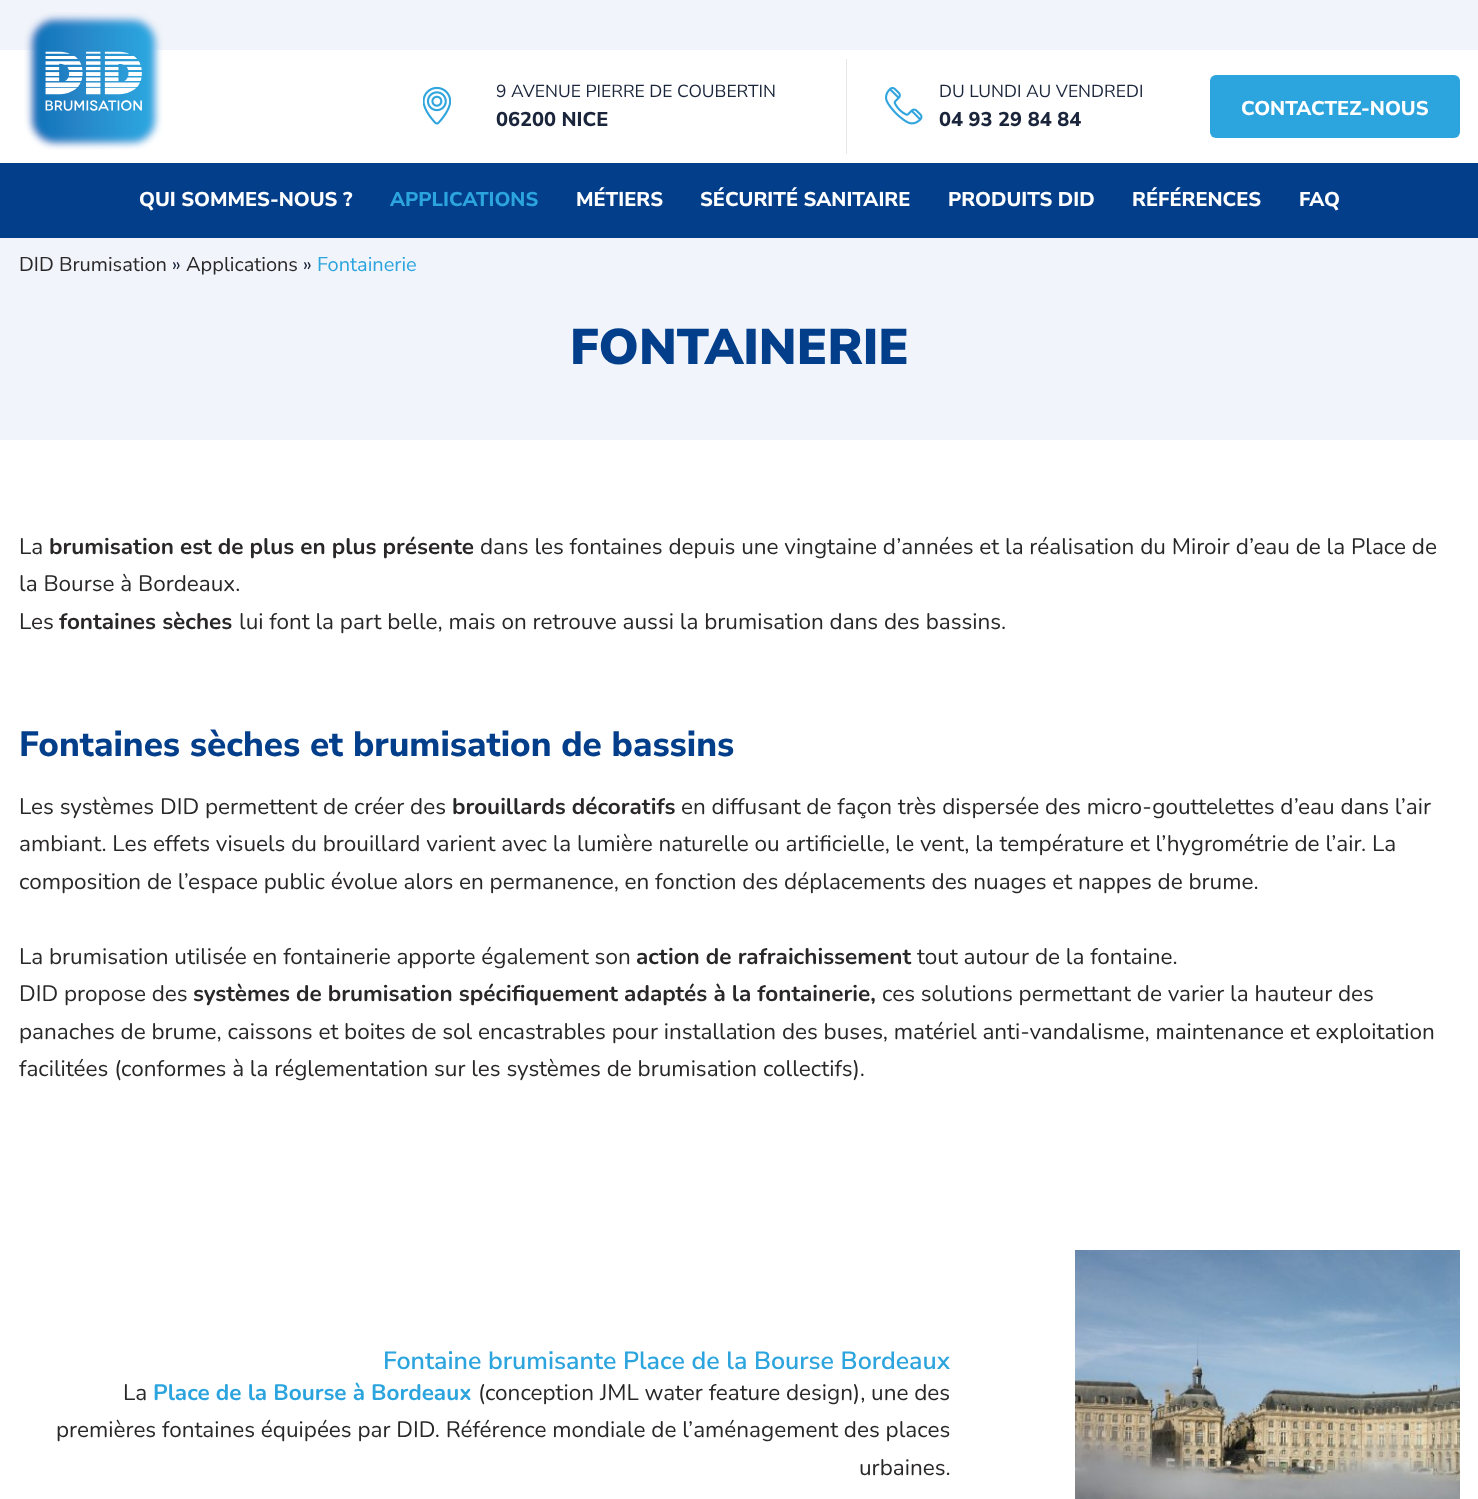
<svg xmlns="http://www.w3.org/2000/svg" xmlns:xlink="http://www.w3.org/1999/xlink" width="1478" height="1499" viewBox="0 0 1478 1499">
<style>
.cls-1{font:17.5px Nunito Sans;fill:#1a253b}
.cls-2{font:800 20px Nunito Sans;fill:#1a253b}
.cls-3{font:800 20px Nunito Sans;fill:#ffffff}
.cls-4{font:800 20px Nunito Sans;fill:#2ca4dd}
.cls-5{font:20px Nunito Sans;fill:#292728}
.cls-6{font:20px Nunito Sans;fill:#1a253b}
.cls-7{font:20px Nunito Sans;fill:#2ca4dd}
.cls-8{font:900 50px Nunito Sans;fill:#023e8a}
.cls-9{font:22.5px Nunito;fill:#292728}
.cls-10{font:bold 22.5px Nunito;fill:#292728}
.cls-11{font:800 35px Nunito Sans;fill:#023e8a}
.cls-12{font:600 25px Nunito Sans;fill:#2ca4dd}
.cls-13{font:bold 22.5px Nunito;fill:#2ca4dd}
</style>
<rect width="100%" height="100%" fill="#ffffff"/>
<rect fill="#023e8a" x="0" y="163" width="1478" height="75"/>
<rect fill="#f1f4fa" x="0" y="0" width="1478" height="50"/>
<rect fill="#e6e7e8" x="846" y="59" width="1" height="95"/>
<image xlink:href="image0.png" x="423" y="86" width="28" height="39"/>
<image xlink:href="image1.png" x="885" y="86" width="38" height="39"/>
<rect fill="#2ca4dd" x="1210" y="75" width="250" height="63" rx="6"/>
<image xlink:href="image2.png" x="24" y="12" width="139" height="138"/>
<rect fill="#f1f4fa" x="0" y="238" width="1478" height="202"/>
<image xlink:href="image3.png" x="1075" y="1250" width="385" height="249"/>
<text class="cls-1" x="496" y="97">9 AVENUE PIERRE DE COUBERTIN</text>
<text class="cls-2" x="496" y="126">06200 NICE</text>
<text class="cls-1" x="939" y="97">DU LUNDI AU VENDREDI</text>
<text class="cls-2" x="939" y="126">04 93 29 84 84</text>
<text class="cls-3" x="1241" y="115">CONTACTEZ-NOUS</text>
<text class="cls-3" x="139" y="206">QUI SOMMES-NOUS ?</text>
<text class="cls-4" x="390" y="206">APPLICATIONS</text>
<text class="cls-3" x="576" y="206">MÉTIERS</text>
<text class="cls-3" x="700" y="206">SÉCURITÉ SANITAIRE</text>
<text class="cls-3" x="948" y="206">PRODUITS DID</text>
<text class="cls-3" x="1132" y="206">RÉFÉRENCES</text>
<text class="cls-3" x="1299" y="206">FAQ</text>
<text class="cls-5" x="19" y="271">DID Brumisation</text>
<text class="cls-6" x="172" y="271">»</text>
<text class="cls-5" x="186" y="271">Applications</text>
<text class="cls-6" x="303" y="271">»</text>
<text class="cls-7" x="317" y="271">Fontainerie</text>
<text class="cls-8" x="570" y="364">FONTAINERIE</text>
<text class="cls-9" x="19" y="554">La</text>
<text class="cls-10" x="49" y="554">brumisation est de plus en plus présente</text>
<text class="cls-9" x="480" y="554">dans les fontaines depuis une vingtaine d’années et la réalisation du Miroir d’eau de la Place de</text>
<text class="cls-9"><tspan x="19" y="591">la Bourse à Bordeaux.</tspan><tspan x="19" y="629">Les</tspan></text>
<text class="cls-10" x="59" y="629">fontaines sèches</text>
<text class="cls-9" x="239" y="629">lui font la part belle, mais on retrouve aussi la brumisation dans des bassins.</text>
<text class="cls-11" x="19" y="756">Fontaines sèches et brumisation de bassins</text>
<text class="cls-9" x="19" y="814">Les systèmes DID permettent de créer des</text>
<text class="cls-10" x="452" y="814">brouillards décoratifs</text>
<text class="cls-9" x="681" y="814">en diffusant de façon très dispersée des micro-gouttelettes d’eau dans l’air</text>
<text class="cls-9"><tspan x="19" y="851">ambiant. Les effets visuels du brouillard varient avec la lumière naturelle ou artificielle, le vent, la température et l’hygrométrie de l’air. La</tspan><tspan x="19" y="889">composition de l’espace public évolue alors en permanence, en fonction des déplacements des nuages et nappes de brume.</tspan></text>
<text class="cls-9" x="19" y="964">La brumisation utilisée en fontainerie apporte également son</text>
<text class="cls-10" x="636" y="964">action de rafraichissement</text>
<text class="cls-9" x="917" y="964">tout autour de la fontaine.</text>
<text class="cls-9" x="19" y="1001">DID propose des</text>
<text class="cls-10" x="193" y="1001">systèmes de brumisation spécifiquement adaptés à la fontainerie,</text>
<text class="cls-9" x="882" y="1001">ces solutions permettant de varier la hauteur des</text>
<text class="cls-9"><tspan x="19" y="1039">panaches de brume, caissons et boites de sol encastrables pour installation des buses, matériel anti-vandalisme, maintenance et exploitation</tspan><tspan x="19" y="1076">facilitées (conformes à la réglementation sur les systèmes de brumisation collectifs).</tspan></text>
<text class="cls-12" x="383" y="1369">Fontaine brumisante Place de la Bourse Bordeaux</text>
<text class="cls-9" x="123" y="1400">La</text>
<text class="cls-13" x="153" y="1400">Place de la Bourse à Bordeaux</text>
<text class="cls-9" x="478" y="1400">(conception JML water feature design), une des</text>
<text class="cls-9" x="56" y="1437">premières fontaines équipées par DID. Référence mondiale de l’aménagement des places</text>
<text class="cls-9" x="859" y="1475">urbaines.</text>
</svg>
